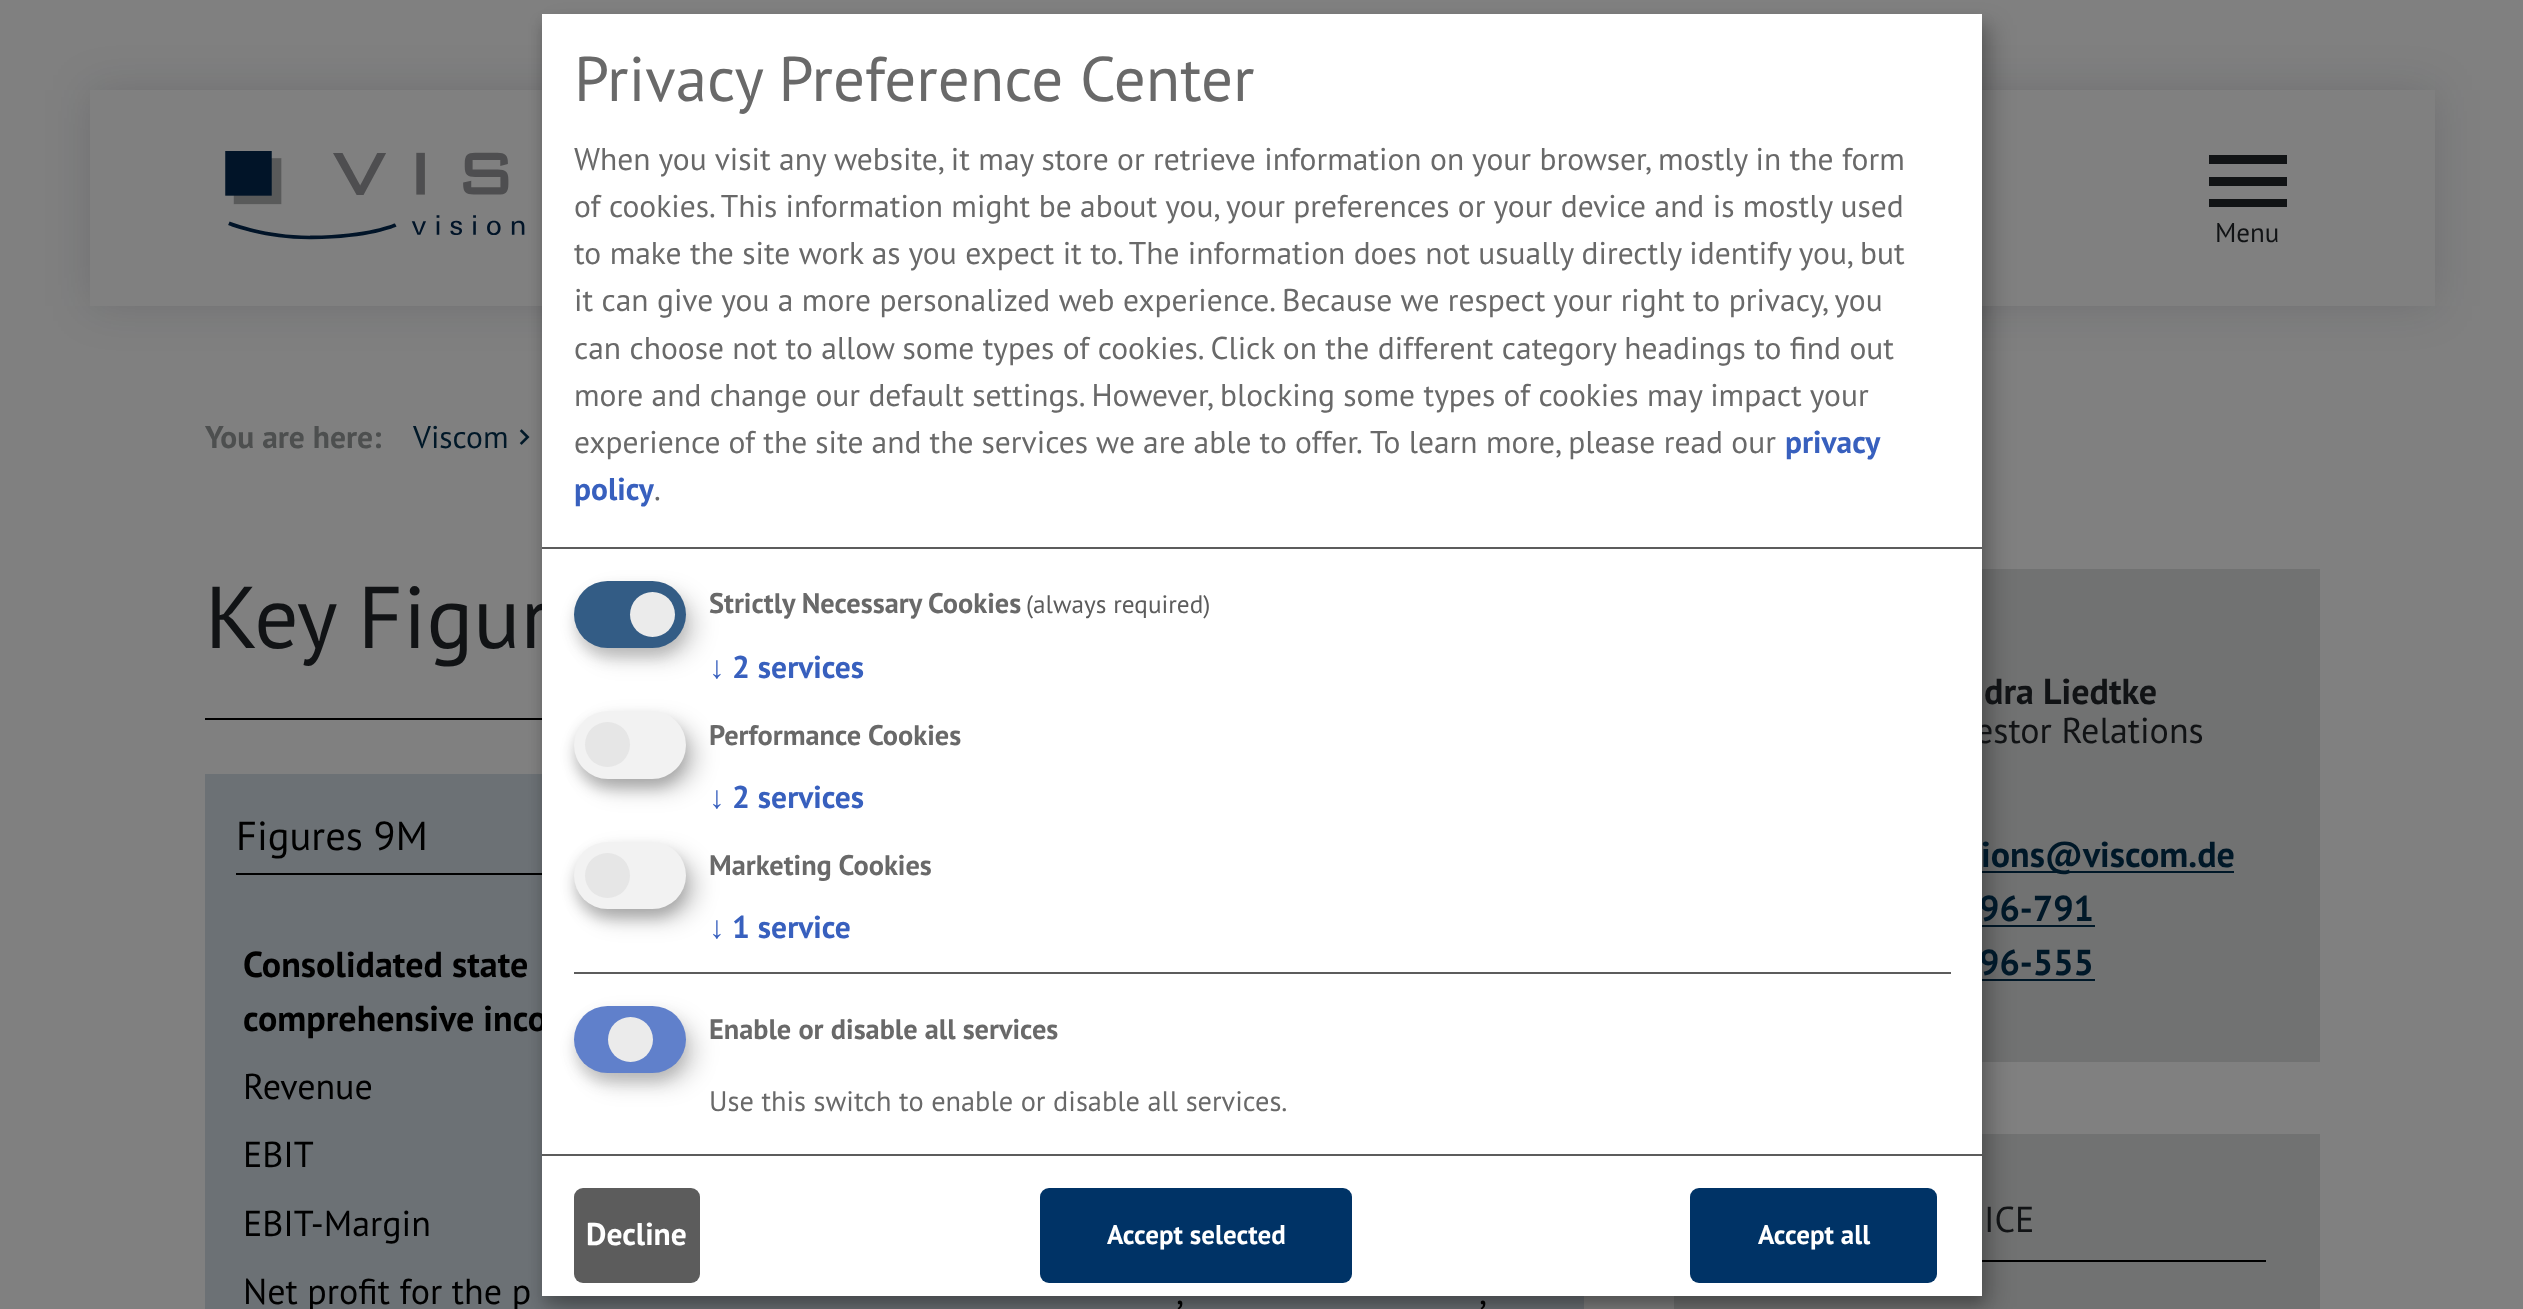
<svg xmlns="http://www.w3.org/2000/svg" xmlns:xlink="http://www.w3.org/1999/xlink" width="2523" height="1309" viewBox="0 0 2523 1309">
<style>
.cls-1{font:27px PT Sans;fill:#111315}
.cls-2{font:bold 31.5px PT Sans;fill:#4d4f4f}
.cls-3{font:31.5px PT Sans;fill:#001828}
.cls-4{font:87.5px PT Sans;fill:#111315}
.cls-5{font:40.5px PT Sans;fill:#000000}
.cls-6{font:bold 36px PT Sans;fill:#000000}
.cls-7{font:36px PT Sans;fill:#000000}
.cls-8{font:bold 36px PT Sans;fill:#111315}
.cls-9{font:36px PT Sans;fill:#111315}
.cls-10{font:bold 36px PT Sans;fill:#001828}
.cls-11{font:28.35px PT Sans;fill:#696969}
.cls-12{font:bold 28.35px PT Sans;fill:#696969}
.cls-13{font:bold 31.5px PT Sans;fill:#3860be}
.cls-14{font:bold 31.5px Liberation Sans;fill:#3860be}
.cls-15{font:25.25px PT Sans;fill:#5c5c5c}
.cls-16{font:63px PT Sans;fill:#696969}
.cls-17{font:bold 27px PT Sans;fill:#ffffff}
.cls-18{font:bold 31.5px PT Sans;fill:#ffffff}
.cls-19{font:31.5px PT Sans;fill:#696969}
</style>
<rect width="100%" height="100%" fill="#808080"/>
<rect fill="#0b1320" fill-opacity="0.15" filter="blur(22.5px)" x="90" y="90" width="2345" height="216"/>
<rect fill="#808080" x="90" y="90" width="2345" height="216"/>
<image xlink:href="image0.png" x="225" y="151" width="300" height="89"/>
<image xlink:href="image1.png" x="519" y="429" width="11" height="16"/>
<rect fill="#000000" x="205" y="718" width="337" height="2"/>
<rect fill="#6c7175" x="205" y="774" width="337" height="124"/>
<rect fill="#000000" x="236" y="873" width="306" height="2"/>
<rect fill="#6c7175" x="205" y="898" width="1379" height="411"/>
<rect fill="#717272" x="1982" y="569" width="338" height="493"/>
<rect fill="#001828" x="1982" y="871" width="252" height="2"/>
<rect fill="#001828" x="1982" y="925" width="113" height="2"/>
<rect fill="#001828" x="1982" y="979" width="113" height="2"/>
<rect fill="#717272" x="1674" y="1134" width="646" height="175"/>
<rect fill="#000000" x="1982" y="1260" width="284" height="2"/>
<rect fill="#000000" fill-opacity="0.19" filter="blur(11px)" x="554" y="25" width="1440" height="1282"/>
<rect fill="#000000" fill-opacity="0.2" filter="blur(7px)" x="542" y="23" width="1440" height="1282"/>
<path fill="#111315" d="M2209 155H2287V164H2209ZM2209 177H2287V186H2209ZM2209 199H2287V207H2209Z"/>
<text class="cls-1" x="2215" y="242">Menu</text>
<text class="cls-2" x="205" y="448">You are here:</text>
<text class="cls-3" x="413" y="448">Viscom</text>
<text class="cls-4" x="205" y="648">Key Figur</text>
<text class="cls-5" x="236" y="850">Figures 9M</text>
<text class="cls-6"><tspan x="243" y="977">Consolidated state</tspan><tspan x="243" y="1031">comprehensive inco</tspan></text>
<text class="cls-7"><tspan x="243" y="1099">Revenue</tspan><tspan x="243" y="1167">EBIT</tspan><tspan x="243" y="1236">EBIT-Margin</tspan><tspan x="243" y="1304">Net profit for the p</tspan></text>
<text class="cls-7" x="1176" y="1304">,</text>
<text class="cls-7" x="1479" y="1304">,</text>
<text class="cls-8" x="1984" y="704">dra Liedtke</text>
<text class="cls-9" x="1975" y="743">estor Relations</text>
<text class="cls-10" x="1981" y="867">ions@viscom.de</text>
<text class="cls-10"><tspan x="1979" y="921">96-791</tspan><tspan x="1979" y="975">96-555</tspan></text>
<rect fill="#ffffff" x="542" y="14" width="1440" height="1282"/>
<rect fill="#333333" fill-opacity="0.2" filter="blur(7px)" x="574" y="1015" width="112" height="67" rx="33.5"/>
<rect fill="#000000" fill-opacity="0.15" filter="blur(11px)" x="585" y="1017" width="113" height="68" rx="34"/>
<rect fill="#6080cb" x="574" y="1006" width="112" height="67" rx="33.5"/>
<circle fill="#ebebeb" cx="630.5" cy="1039.5" r="22.5"/>
<text class="cls-11" x="709" y="1111">Use this switch to enable or disable all services.</text>
<text class="cls-12" x="709" y="1039">Enable or disable all services</text>
<rect fill="#5c5c5c" x="574" y="972" width="1377" height="2"/>
<rect fill="#000000" fill-opacity="0.2" filter="blur(7px)" x="574" y="851" width="112" height="67" rx="33.5"/>
<rect fill="#000000" fill-opacity="0.19" filter="blur(11px)" x="585" y="853" width="113" height="67" rx="33.5"/>
<rect fill="#f2f2f2" x="574" y="842" width="112" height="67" rx="33.5"/>
<circle fill="#e6e6e6" cx="607.5" cy="875.5" r="22.5"/>
<text class="cls-13" x="732" y="938">1 service</text>
<text class="cls-14" x="709" y="938">↓</text>
<text class="cls-12" x="709" y="875">Marketing Cookies</text>
<rect fill="#000000" fill-opacity="0.2" filter="blur(7px)" x="574" y="720" width="112" height="68" rx="34"/>
<rect fill="#000000" fill-opacity="0.19" filter="blur(11px)" x="585" y="722" width="113" height="68" rx="34"/>
<rect fill="#f2f2f2" x="574" y="711" width="112" height="68" rx="34"/>
<circle fill="#e6e6e6" cx="607.5" cy="744.5" r="22.5"/>
<text class="cls-13" x="732" y="808">2 services</text>
<text class="cls-14" x="709" y="808">↓</text>
<text class="cls-12" x="709" y="745">Performance Cookies</text>
<rect fill="#333333" fill-opacity="0.2" filter="blur(7px)" x="574" y="590" width="112" height="67" rx="33.5"/>
<rect fill="#000000" fill-opacity="0.15" filter="blur(11px)" x="585" y="592" width="113" height="67" rx="33.5"/>
<rect fill="#335c85" x="574" y="581" width="112" height="67" rx="33.5"/>
<circle fill="#ebebeb" cx="652.5" cy="614.5" r="22.5"/>
<text class="cls-13" x="732" y="678">2 services</text>
<text class="cls-14" x="709" y="678">↓</text>
<text class="cls-15" x="1026" y="613">(always required)</text>
<text class="cls-12" x="709" y="613">Strictly Necessary Cookies</text>
<text class="cls-16" x="574" y="101">Privacy Preference Center</text>
<rect fill="#003366" x="1690" y="1188" width="247" height="95" rx="9"/>
<text class="cls-17" x="1758" y="1244">Accept all</text>
<rect fill="#003366" x="1040" y="1188" width="312" height="95" rx="9"/>
<text class="cls-17" x="1107" y="1244">Accept selected</text>
<rect fill="#5c5c5c" x="574" y="1188" width="126" height="95" rx="9"/>
<text class="cls-18" x="586" y="1245">Decline</text>
<text class="cls-19" x="654" y="500">.</text>
<text class="cls-13" x="574" y="500">policy</text>
<text class="cls-13" x="1785" y="453">privacy</text>
<text class="cls-19" x="1370" y="453">To learn more, please read our</text>
<text class="cls-19" x="574" y="453" word-spacing="-0.25">experience of the site and the services we are able to offer.</text>
<text class="cls-19" x="574" y="406">more and change our default settings. However, blocking some types of cookies may impact your</text>
<text class="cls-19" x="574" y="359">can choose not to allow some types of cookies. Click on the different category headings to find out</text>
<text class="cls-19" x="574" y="311">it can give you a more personalized web experience. Because we respect your right to privacy, you</text>
<text class="cls-19" x="574" y="264">to make the site work as you expect it to. The information does not usually directly identify you, but</text>
<text class="cls-19" x="574" y="217">of cookies. This information might be about you, your preferences or your device and is mostly used</text>
<text class="cls-19" x="574" y="170">When you visit any website, it may store or retrieve information on your browser, mostly in the form</text>
<rect fill="#5c5c5c" x="542" y="1154" width="1440" height="2"/>
<rect fill="#5c5c5c" x="542" y="547" width="1440" height="2"/>
<text class="cls-9" x="1984" y="1232">ICE</text>
</svg>
